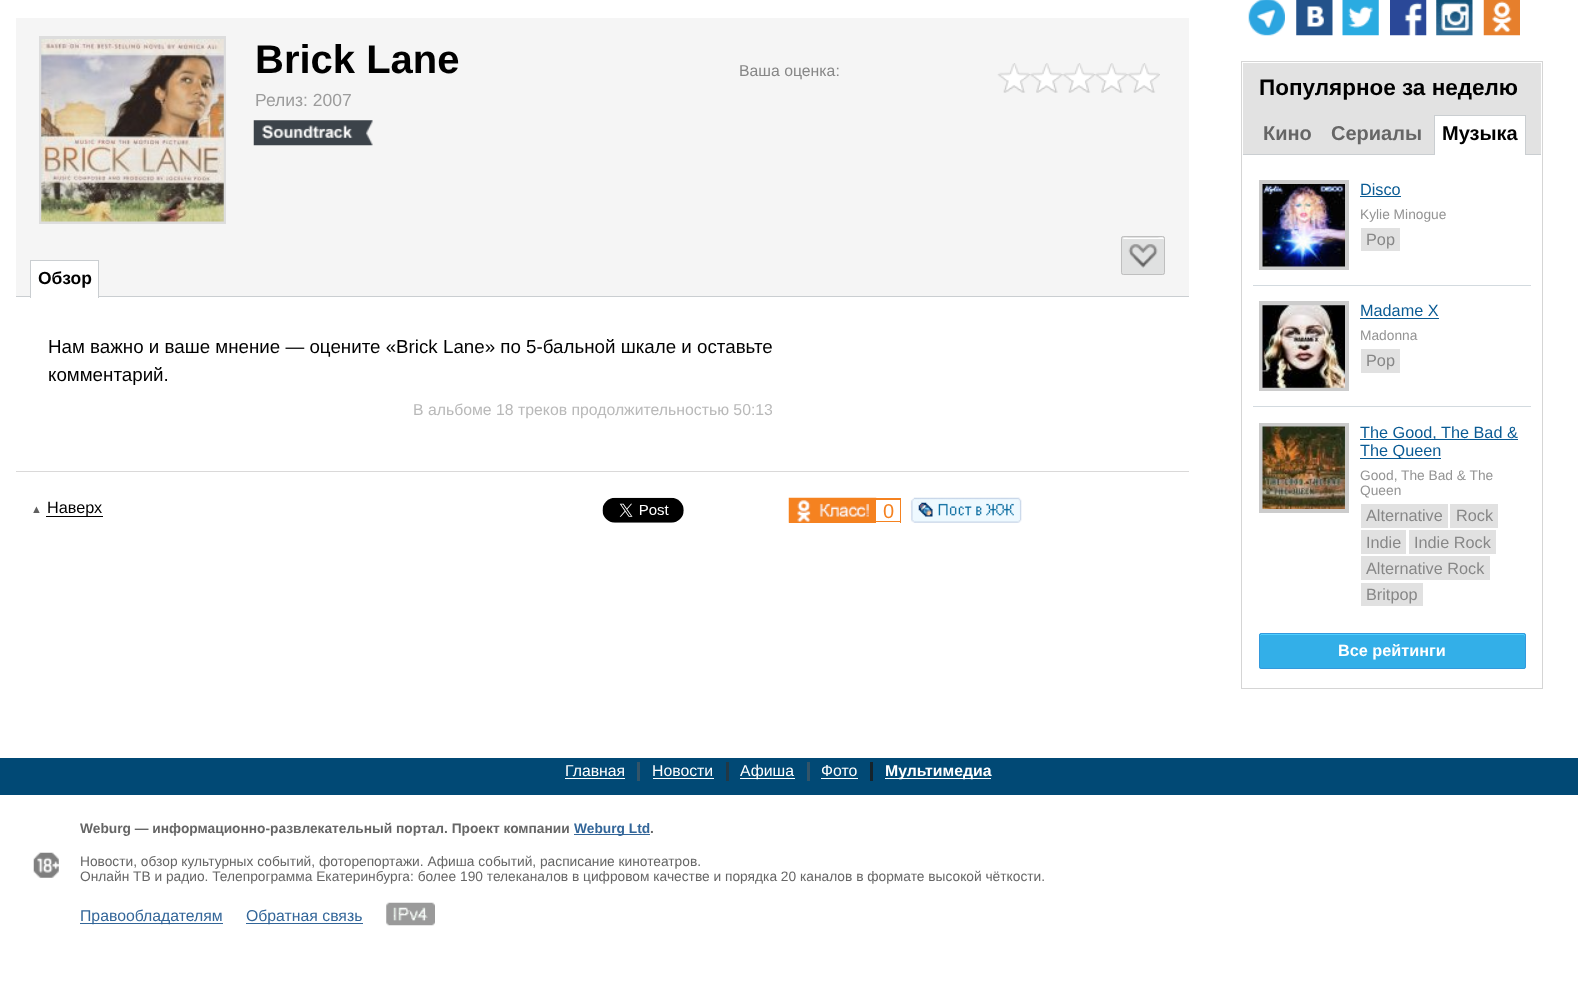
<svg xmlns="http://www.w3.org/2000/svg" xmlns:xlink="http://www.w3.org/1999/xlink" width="1578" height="986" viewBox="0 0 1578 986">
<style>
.cls-1{font:bold 40px Liberation Sans;fill:#000000}
.cls-2{font:17.5px Liberation Sans;fill:#9c9c9c}
.cls-3{font:15.8px Liberation Sans;fill:#878787}
.cls-4{font:bold 17.5px Liberation Sans;fill:#000000}
.cls-5{font:18.75px Liberation Sans;fill:#000000}
.cls-6{font:15.8px Liberation Sans;fill:#b9b9b9}
.cls-7{font:11px Liberation Sans;fill:#5f5f5f}
.cls-8{font:16.25px Liberation Sans;fill:#000000}
.cls-9{font:20px Liberation Sans;fill:#f58220}
.cls-10{font:bold 22.5px Liberation Sans;fill:#000000}
.cls-11{font:bold 20px Liberation Sans;fill:#666666}
.cls-12{font:bold 20px Liberation Sans;fill:#000000}
.cls-13{font:16.25px Liberation Sans;fill:#0a5b94}
.cls-14{font:13.75px Liberation Sans;fill:#949494}
.cls-15{font:16.25px Liberation Sans;fill:#878787}
.cls-16{font:bold 16.25px Liberation Sans;fill:#ffffff}
.cls-17{font:15.8px Liberation Sans;fill:#ffffff}
.cls-18{font:bold 15.8px Liberation Sans;fill:#ffffff}
.cls-19{font:bold 13.75px Liberation Sans;fill:#666666}
.cls-20{font:bold 13.75px Liberation Sans;fill:#336699}
.cls-21{font:13.75px Liberation Sans;fill:#666666}
.cls-22{font:15.8px Liberation Sans;fill:#336699}
</style>
<rect width="100%" height="100%" fill="#ffffff"/>
<rect fill="#f5f5f5" x="16" y="18" width="1173" height="278"/>
<rect fill="none" stroke="#dddddd" stroke-width="3" x="40.5" y="37.5" width="184" height="185"/>
<image xlink:href="image0.png" x="41" y="39" width="183" height="183"/>
<image xlink:href="image1.png" x="253" y="120" width="120" height="26"/>
<image xlink:href="image2.png" x="997" y="63" width="33" height="30"/>
<image xlink:href="image3.png" x="1030" y="63" width="33" height="30"/>
<image xlink:href="image4.png" x="1062" y="63" width="33" height="30"/>
<image xlink:href="image3.png" x="1095" y="63" width="33" height="30"/>
<image xlink:href="image4.png" x="1127" y="63" width="33" height="30"/>
<rect fill="#e0e1e1" x="1121" y="236" width="44" height="39" rx="2.5"/>
<path fill="#ffffff" d="M1124 239H1162C1163 239 1164 239 1164 240C1164 236 1160 238 1156 238H1130C1128 238 1123 237 1123 239Z"/>
<rect fill="none" stroke="#bfbfbf" x="1121.5" y="236.5" width="43" height="38" rx="2"/>
<image xlink:href="image5.png" x="1128" y="244" width="30" height="24"/>
<rect fill="#caced1" x="30" y="260" width="69" height="1"/>
<rect fill="#caced1" x="16" y="296" width="1173" height="1"/>
<rect fill="#caced1" x="98" y="260" width="1" height="38"/>
<rect fill="#caced1" x="30" y="260" width="1" height="38"/>
<rect fill="#ffffff" x="31" y="261" width="67" height="36"/>
<rect fill="#dad9d9" x="16" y="471" width="1173" height="1"/>
<rect fill="#000000" x="46" y="516" width="57" height="1"/>
<image xlink:href="image6.png" x="602" y="497" width="82" height="26"/>
<rect fill="#f58220" x="789" y="498" width="112" height="25"/>
<image xlink:href="image7.png" x="788" y="497" width="89" height="26"/>
<rect fill="#ffffff" x="876" y="500" width="24" height="23"/>
<rect fill="#f58220" x="876" y="521" width="25" height="1"/>
<image xlink:href="image8.png" x="910" y="497" width="112" height="26"/>
<image xlink:href="image9.png" x="1248" y="0" width="37" height="36"/>
<image xlink:href="image10.png" x="1296" y="0" width="37" height="36"/>
<image xlink:href="image11.png" x="1342" y="0" width="37" height="36"/>
<image xlink:href="image12.png" x="1390" y="0" width="37" height="36"/>
<image xlink:href="image13.png" x="1436" y="0" width="37" height="36"/>
<image xlink:href="image14.png" x="1483" y="0" width="37" height="36"/>
<rect fill="none" stroke="#d5d5d5" x="1241.5" y="61.5" width="301" height="627"/>
<rect fill="#e2e2e2" x="1243" y="63" width="298" height="91"/>
<rect fill="#caced1" x="1434" y="115" width="92" height="1"/>
<rect fill="#caced1" x="1243" y="154" width="298" height="1"/>
<rect fill="#caced1" x="1525" y="115" width="1" height="40"/>
<rect fill="#caced1" x="1434" y="115" width="1" height="40"/>
<rect fill="#ffffff" x="1435" y="116" width="90" height="39"/>
<rect fill="#cccccc" x="1259" y="180" width="90" height="90"/>
<image xlink:href="image15.png" x="1262" y="184" width="83" height="83"/>
<rect fill="#0a5b94" x="1360" y="196" width="41" height="1"/>
<rect fill="#e1e1e1" x="1361" y="228" width="39" height="23"/>
<rect fill="#d3dadf" x="1253" y="285" width="278" height="1"/>
<rect fill="#cccccc" x="1259" y="301" width="90" height="90"/>
<image xlink:href="image16.png" x="1262" y="305" width="83" height="83"/>
<rect fill="#0a5b94" x="1360" y="318" width="79" height="1"/>
<rect fill="#e1e1e1" x="1361" y="349" width="39" height="24"/>
<rect fill="#d3dadf" x="1253" y="406" width="278" height="1"/>
<rect fill="#cccccc" x="1259" y="423" width="90" height="90"/>
<image xlink:href="image17.png" x="1262" y="426" width="83" height="83"/>
<rect fill="#0a5b94" x="1360" y="439" width="158" height="1"/>
<rect fill="#0a5b94" x="1360" y="458" width="81" height="1"/>
<rect fill="#e1e1e1" x="1361" y="504" width="87" height="24"/>
<rect fill="#e1e1e1" x="1450" y="504" width="48" height="24"/>
<rect fill="#e1e1e1" x="1361" y="530" width="45" height="24"/>
<rect fill="#e1e1e1" x="1409" y="530" width="87" height="24"/>
<rect fill="#e1e1e1" x="1361" y="556" width="129" height="24"/>
<rect fill="#e1e1e1" x="1361" y="583" width="62" height="23"/>
<rect fill="#33afe8" x="1259" y="633" width="267" height="36" rx="2.5"/>
<path fill="#4ecfff" d="M1261 635H1524L1525 637C1525 636 1525 634 1524 634H1261C1260 634 1260 635 1260 636Z"/>
<rect fill="none" stroke="#3399dd" x="1259.5" y="633.5" width="266" height="35" rx="2"/>
<rect fill="#014975" x="0" y="758" width="1578" height="37"/>
<rect fill="#335468" x="637" y="762" width="3" height="19"/>
<rect fill="#ffffff" x="565" y="778" width="60" height="1"/>
<rect fill="#223845" x="726" y="762" width="3" height="19"/>
<rect fill="#ffffff" x="653" y="778" width="61" height="1"/>
<rect fill="#335468" x="807" y="762" width="3" height="19"/>
<rect fill="#ffffff" x="740" y="778" width="55" height="1"/>
<rect fill="#15232b" x="870" y="762" width="3" height="19"/>
<rect fill="#ffffff" x="821" y="778" width="37" height="1"/>
<rect fill="#ffffff" x="885" y="778" width="106" height="1"/>
<image xlink:href="image18.png" x="33" y="852" width="26" height="26"/>
<rect fill="#336699" x="574" y="834" width="76" height="1"/>
<rect fill="#336699" x="80" y="923" width="143" height="1"/>
<rect fill="#336699" x="246" y="923" width="117" height="1"/>
<image xlink:href="image19.png" x="386" y="902" width="49" height="24"/>
<text class="cls-1" x="255" y="73">Brick Lane</text>
<text class="cls-2" x="255" y="106">Релиз: 2007</text>
<text class="cls-3" x="739" y="76">Ваша оценка:</text>
<text class="cls-4" x="38" y="284">Обзор</text>
<text class="cls-5"><tspan x="48" y="353">Нам важно и ваше мнение — оцените «Brick Lane» по 5-бальной шкале и оставьте</tspan><tspan x="48" y="381">комментарий.</tspan></text>
<text class="cls-6" x="413" y="415">В альбоме 18 треков продолжительностью 50:13</text>
<text class="cls-7" x="31" y="513">▲</text>
<text class="cls-8" x="47" y="513">Наверх</text>
<text class="cls-9" x="883" y="518">0</text>
<text class="cls-10" x="1259" y="95">Популярное за неделю</text>
<text class="cls-11" x="1263" y="140">Кино</text>
<text class="cls-11" x="1331" y="140">Сериалы</text>
<text class="cls-12" x="1442" y="140">Музыка</text>
<text class="cls-13" x="1360" y="195">Disco</text>
<text class="cls-14" x="1360" y="219">Kylie Minogue</text>
<text class="cls-15" x="1366" y="245">Pop</text>
<text class="cls-13" x="1360" y="316">Madame X</text>
<text class="cls-14" x="1360" y="340">Madonna</text>
<text class="cls-15" x="1366" y="366">Pop</text>
<text class="cls-13"><tspan x="1360" y="438">The Good, The Bad &amp;</tspan><tspan x="1360" y="456">The Queen</tspan></text>
<text class="cls-14"><tspan x="1360" y="480">Good, The Bad &amp; The</tspan><tspan x="1360" y="495">Queen</tspan></text>
<text class="cls-15" x="1366" y="521">Alternative</text>
<text class="cls-15" x="1456" y="521">Rock</text>
<text class="cls-15" x="1366" y="548">Indie</text>
<text class="cls-15" x="1414" y="548">Indie Rock</text>
<text class="cls-15"><tspan x="1366" y="574">Alternative Rock</tspan><tspan x="1366" y="600">Britpop</tspan></text>
<text class="cls-16" x="1338" y="656">Все рейтинги</text>
<text class="cls-17" x="565" y="776">Главная</text>
<text class="cls-17" x="652" y="776">Новости</text>
<text class="cls-17" x="740" y="776">Афиша</text>
<text class="cls-17" x="821" y="776">Фото</text>
<text class="cls-18" x="885" y="776">Мультимедиа</text>
<text class="cls-19" x="80" y="833">Weburg — информационно-развлекательный портал. Проект компании</text>
<text class="cls-20" x="574" y="833">Weburg Ltd</text>
<text class="cls-19" x="650" y="833">.</text>
<text class="cls-21"><tspan x="80" y="866">Новости, обзор культурных событий, фоторепортажи. Афиша событий, расписание кинотеатров.</tspan><tspan x="80" y="881">Онлайн ТВ и радио. Телепрограмма Екатеринбурга: более 190 телеканалов в цифровом качестве и порядка 20 каналов в формате высокой чёткости.</tspan></text>
<text class="cls-22" x="80" y="921">Правообладателям</text>
<text class="cls-22" x="246" y="921">Обратная связь</text>
</svg>
